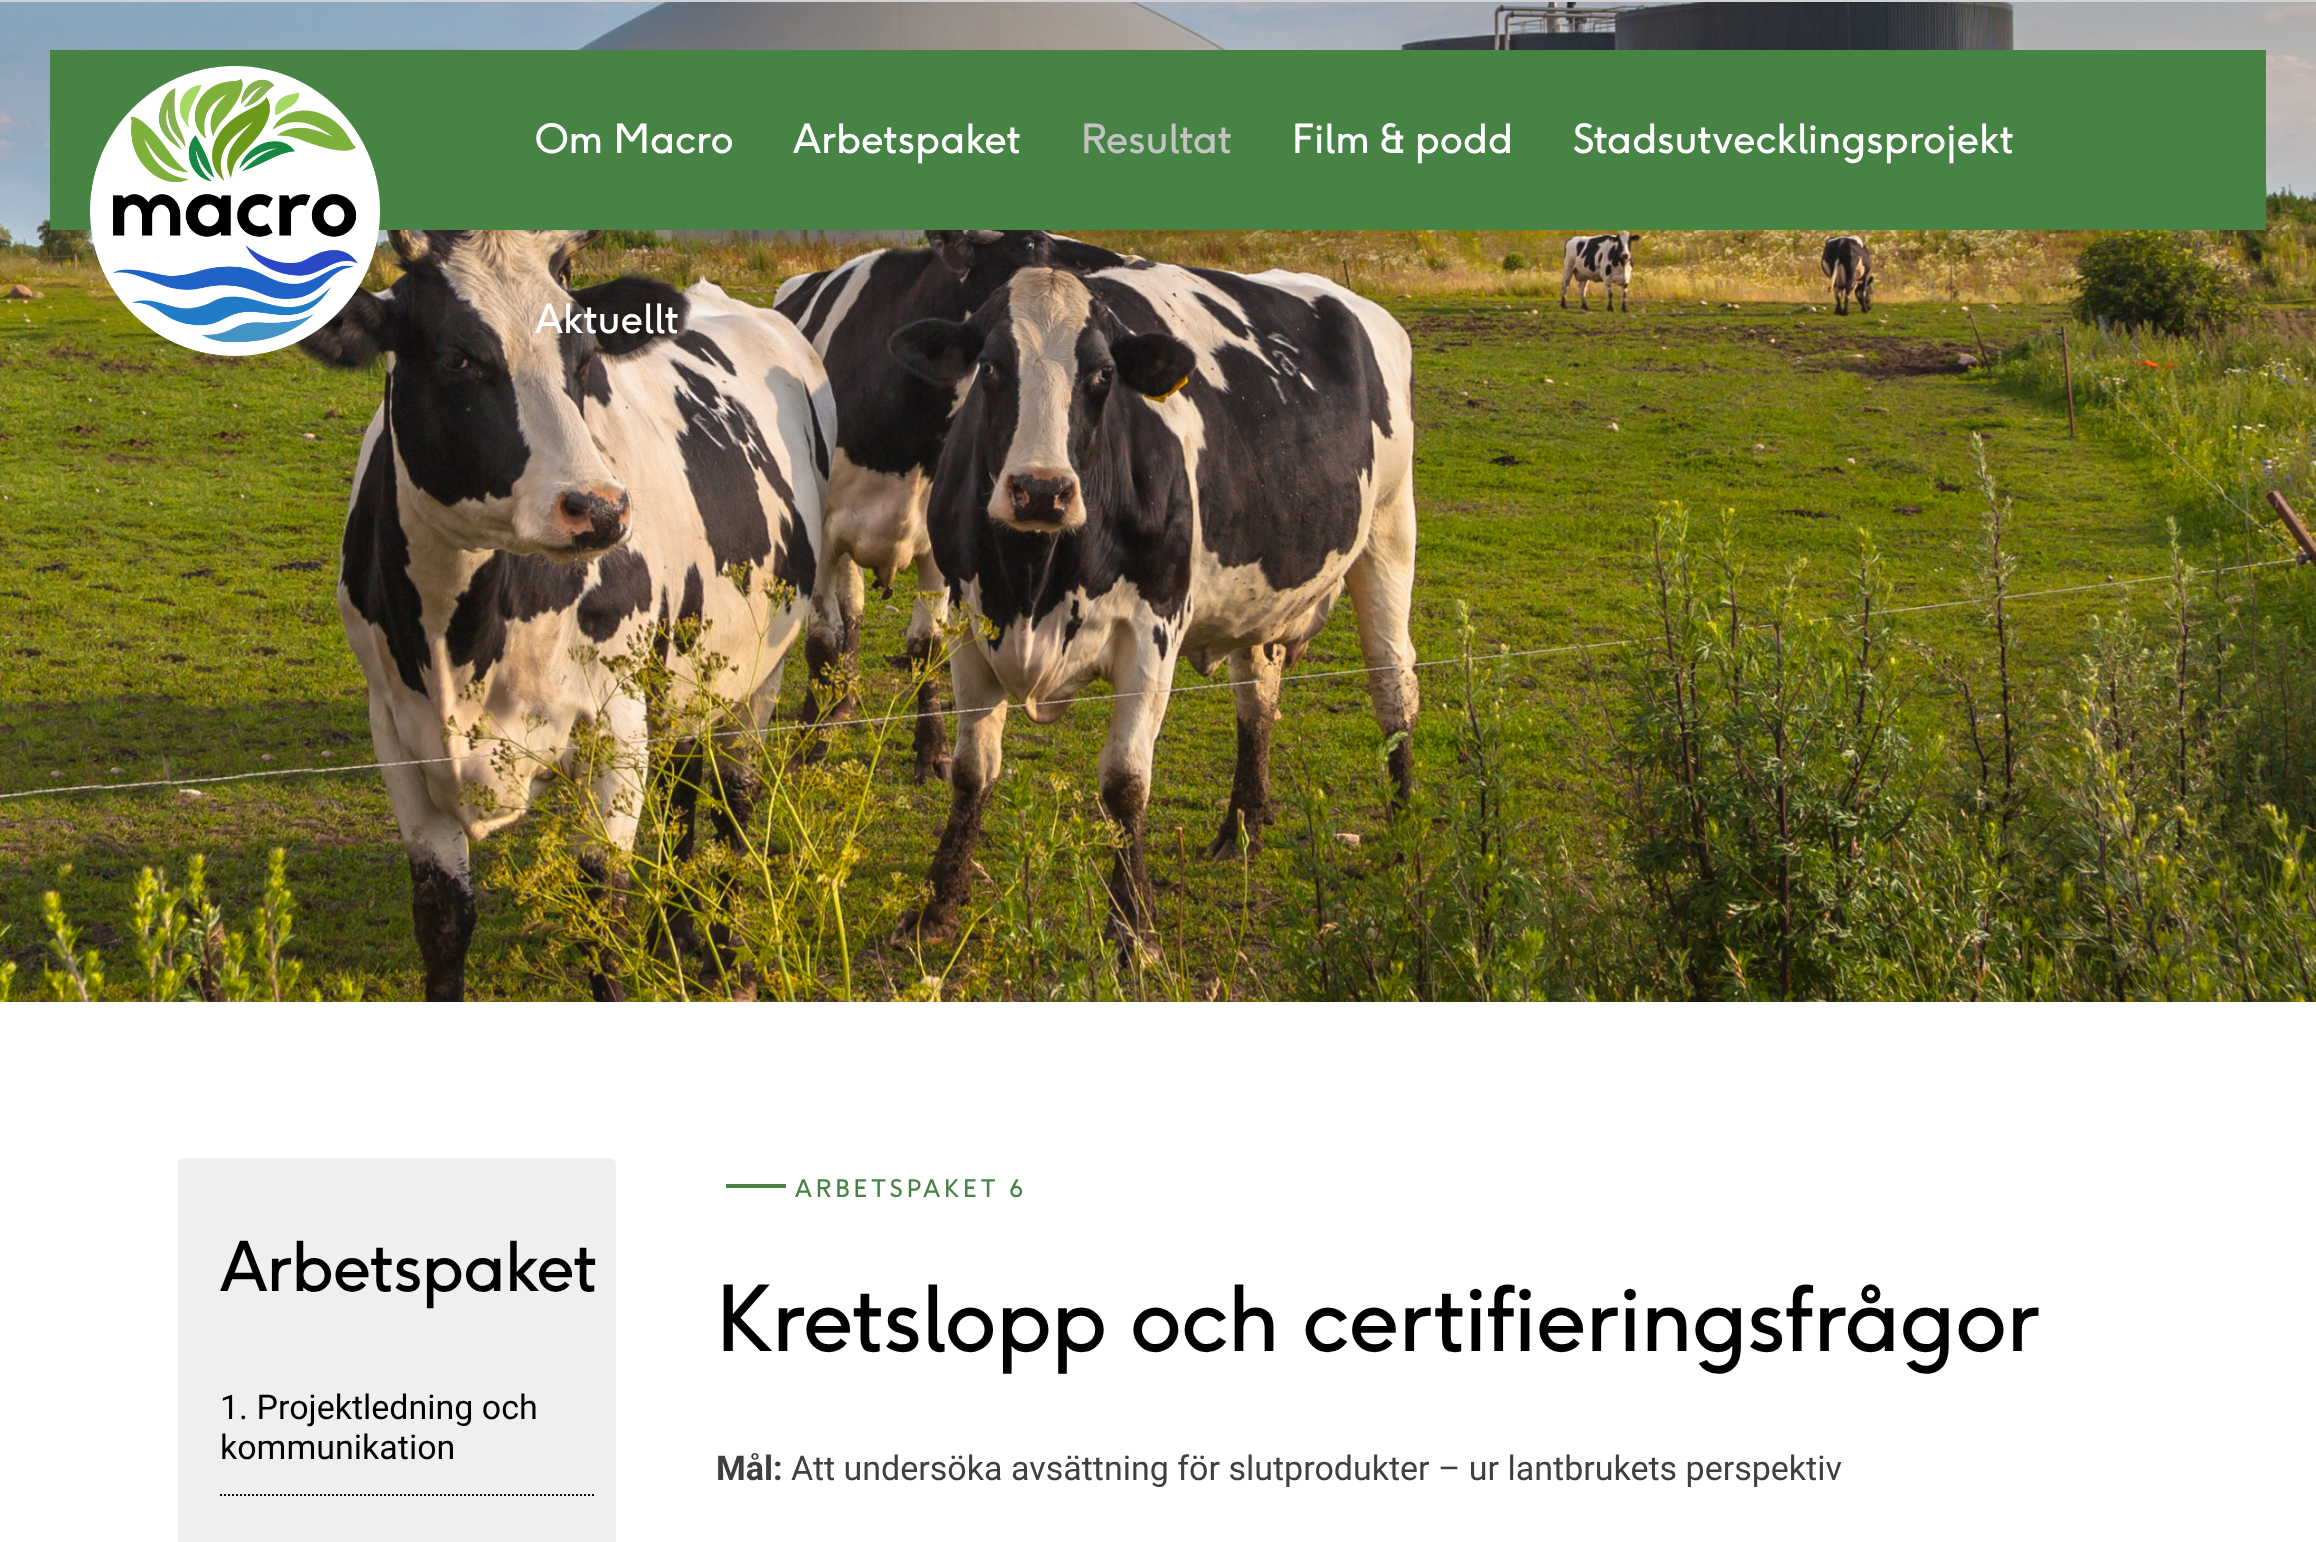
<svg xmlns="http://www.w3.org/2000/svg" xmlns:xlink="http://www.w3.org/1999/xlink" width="2316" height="1542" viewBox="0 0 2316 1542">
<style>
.cls-1{font:40px 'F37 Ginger';fill:#ffffff}
.cls-2{font:40px 'F37 Ginger';fill:#c3c3c3}
.cls-3{font:68px 'F37 Ginger';letter-spacing:-1px;fill:#000000}
.cls-4{font:34px Roboto;fill:#000000}
.cls-5{font:24px 'F37 Ginger';letter-spacing:4px;fill:#488346}
.cls-6{font:90px 'F37 Ginger';letter-spacing:-1px;fill:#000000}
.cls-7{font:bold 34px Roboto;fill:#3f3f3f}
.cls-8{font:34px Roboto;fill:#3f3f3f}
</style>
<rect width="100%" height="100%" fill="#ffffff"/>
<image xlink:href="image1.png" x="0" y="2" width="2316" height="1000"/>
<rect fill="#488346" x="50" y="50" width="2216" height="180"/>
<image xlink:href="image0.png" x="90" y="66" width="290" height="290"/>
<rect fill="#d2d2d2" x="0" y="0" width="2316" height="2"/>
<rect fill="#efefef" x="178" y="1158" width="438" height="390" rx="6"/>
<path fill="none" stroke="#000000" stroke-width="2" stroke-dasharray="2 2" d="M220 1495H594"/>
<rect fill="#488346" x="726" y="1184" width="60" height="4"/>
<text class="cls-1" x="535" y="153">Om Macro</text>
<text class="cls-1" x="793" y="153">Arbetspaket</text>
<text class="cls-2" x="1081" y="153">Resultat</text>
<text class="cls-1" x="1292" y="153">Film &amp; podd</text>
<text class="cls-1" x="1573" y="153">Stadsutvecklingsprojekt</text>
<text class="cls-1" x="535" y="333">Aktuellt</text>
<text class="cls-3" x="220" y="1291">Arbetspaket</text>
<text class="cls-4"><tspan x="220" y="1419">1. Projektledning och</tspan><tspan x="220" y="1459">kommunikation</tspan></text>
<text class="cls-5" x="795" y="1197">ARBETSPAKET 6</text>
<text class="cls-6" x="716" y="1351">Kretslopp och certifieringsfrågor</text>
<text class="cls-7" x="716" y="1480">Mål:</text>
<text class="cls-8" x="791" y="1480">Att undersöka avsättning för slutprodukter – ur lantbrukets perspektiv</text>
</svg>
